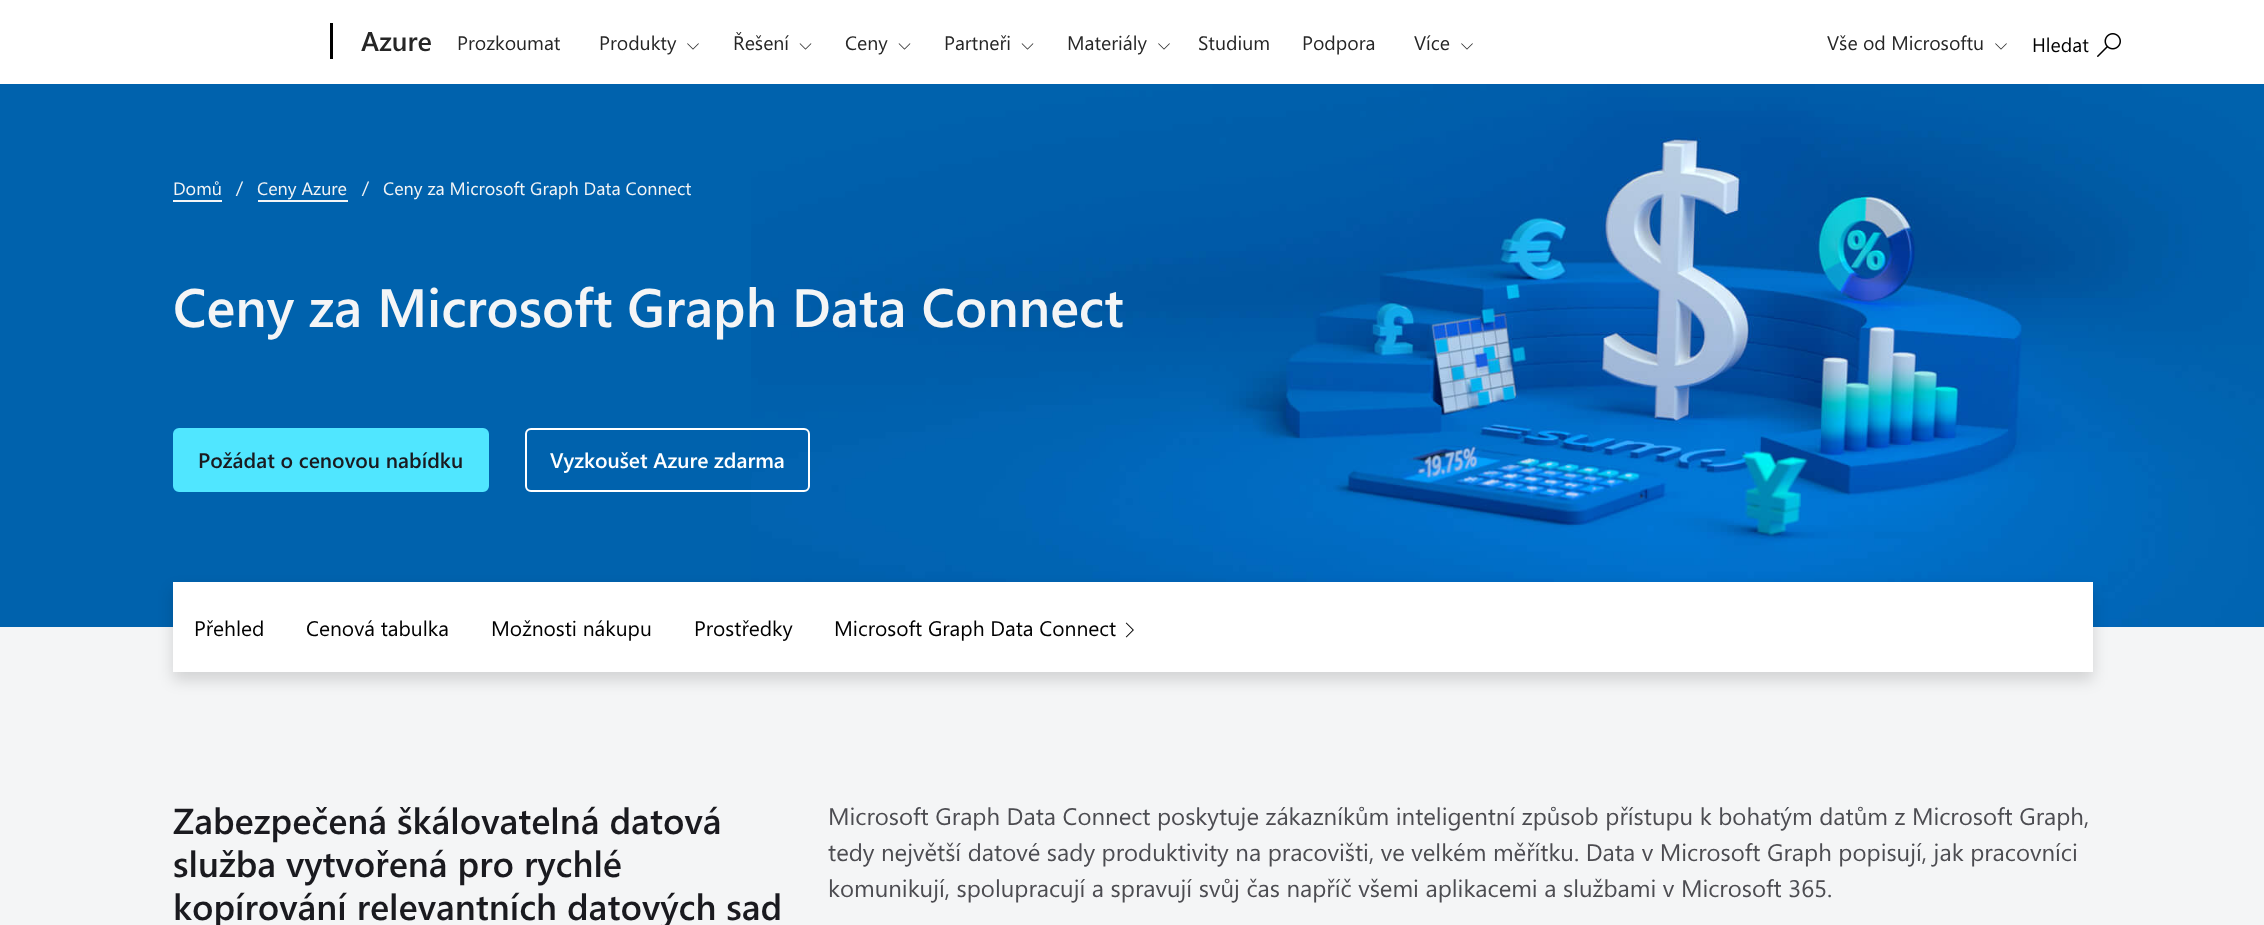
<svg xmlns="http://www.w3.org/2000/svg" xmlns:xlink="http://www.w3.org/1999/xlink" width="2264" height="925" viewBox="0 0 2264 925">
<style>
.cls-1{font:600 27px Segoe UI;fill:#262626}
.cls-2{font:19.5px Segoe UI;fill:#262626}
.cls-3{font:19.5px Segoe UI;fill:#000000}
.cls-4{font:18px Segoe UI;fill:#f4f5f6}
.cls-5{font:600 54px Segoe UI;fill:#f4f5f6}
.cls-6{font:600 21px Segoe UI;fill:#1a1a1f}
.cls-7{font:600 21px Segoe UI;fill:#ffffff}
.cls-8{font:21px Segoe UI;fill:#000000}
.cls-9{font:600 36px Segoe UI;fill:#1a1a1f}
.cls-10{font:24px Segoe UI;fill:#4c4c51}
</style>
<rect width="100%" height="100%" fill="#ffffff"/>
<rect fill="#000000" x="330" y="23" width="3" height="36"/>
<image xlink:href="image0.png" x="687" y="43" width="12" height="7"/>
<image xlink:href="image1.png" x="799" y="43" width="13" height="7"/>
<image xlink:href="image1.png" x="898" y="43" width="13" height="7"/>
<image xlink:href="image1.png" x="1021" y="43" width="13" height="7"/>
<image xlink:href="image0.png" x="1158" y="43" width="12" height="7"/>
<image xlink:href="image0.png" x="1461" y="43" width="12" height="7"/>
<image xlink:href="image0.png" x="1995" y="43" width="12" height="7"/>
<image xlink:href="image2.png" x="2097" y="33" width="24" height="24"/>
<rect fill="#0062ad" x="0" y="84" width="751" height="543"/>
<image xlink:href="image3.png" x="751" y="84" width="1513" height="543"/>
<rect fill="#f4f5f6" x="173" y="200" width="49" height="2"/>
<rect fill="#f4f5f6" x="258" y="200" width="90" height="2"/>
<rect fill="#50e6ff" stroke="#50e6ff" stroke-width="2" x="174" y="429" width="314" height="62" rx="5"/>
<rect fill="none" stroke="#ffffff" stroke-width="2" x="526" y="429" width="283" height="62" rx="5"/>
<rect fill="#f4f5f6" x="0" y="627" width="2264" height="298"/>
<rect fill="#000000" fill-opacity="0.14" filter="blur(7.5px)" x="173" y="590" width="1920" height="90"/>
<rect fill="#ffffff" x="173" y="582" width="1920" height="90"/>
<image xlink:href="image4.png" x="1125" y="622" width="9" height="16"/>
<text class="cls-1" x="361" y="51">Azure</text>
<text class="cls-2" x="457" y="50">Prozkoumat</text>
<text class="cls-2" x="599" y="50">Produkty</text>
<text class="cls-2" x="733" y="50">Řešení</text>
<text class="cls-2" x="845" y="50">Ceny</text>
<text class="cls-2" x="944" y="50">Partneři</text>
<text class="cls-2" x="1067" y="50">Materiály</text>
<text class="cls-2" x="1198" y="50">Studium</text>
<text class="cls-2" x="1302" y="50">Podpora</text>
<text class="cls-2" x="1414" y="50">Více</text>
<text class="cls-2" x="1827" y="50">Vše od Microsoftu</text>
<text class="cls-3" x="2032" y="52">Hledat</text>
<text class="cls-4" x="173" y="195">Domů</text>
<text class="cls-4" x="236" y="194">/</text>
<text class="cls-4" x="257" y="195">Ceny Azure</text>
<text class="cls-4" x="362" y="194">/</text>
<text class="cls-4" x="383" y="195">Ceny za Microsoft Graph Data Connect</text>
<text class="cls-5" x="173" y="327">Ceny za Microsoft Graph Data Connect</text>
<text class="cls-6" x="198" y="468">Požádat o cenovou nabídku</text>
<text class="cls-7" x="550" y="468">Vyzkoušet Azure zdarma</text>
<text class="cls-8" x="194" y="636">Přehled</text>
<text class="cls-8" x="306" y="636">Cenová tabulka</text>
<text class="cls-8" x="491" y="636">Možnosti nákupu</text>
<text class="cls-8" x="694" y="636">Prostředky</text>
<text class="cls-8" x="834" y="636">Microsoft Graph Data Connect</text>
<text class="cls-9"><tspan x="173" y="834">Zabezpečená škálovatelná datová</tspan><tspan x="173" y="877">služba vytvořená pro rychlé</tspan><tspan x="173" y="920">kopírování relevantních datových sad</tspan></text>
<text class="cls-10"><tspan x="828" y="825">Microsoft Graph Data Connect poskytuje zákazníkům inteligentní způsob přístupu k bohatým datům z Microsoft Graph,</tspan><tspan x="828" y="861">tedy největší datové sady produktivity na pracovišti, ve velkém měřítku. Data v Microsoft Graph popisují, jak pracovníci</tspan><tspan x="828" y="897">komunikují, spolupracují a spravují svůj čas napříč všemi aplikacemi a službami v Microsoft 365.</tspan></text>
</svg>
